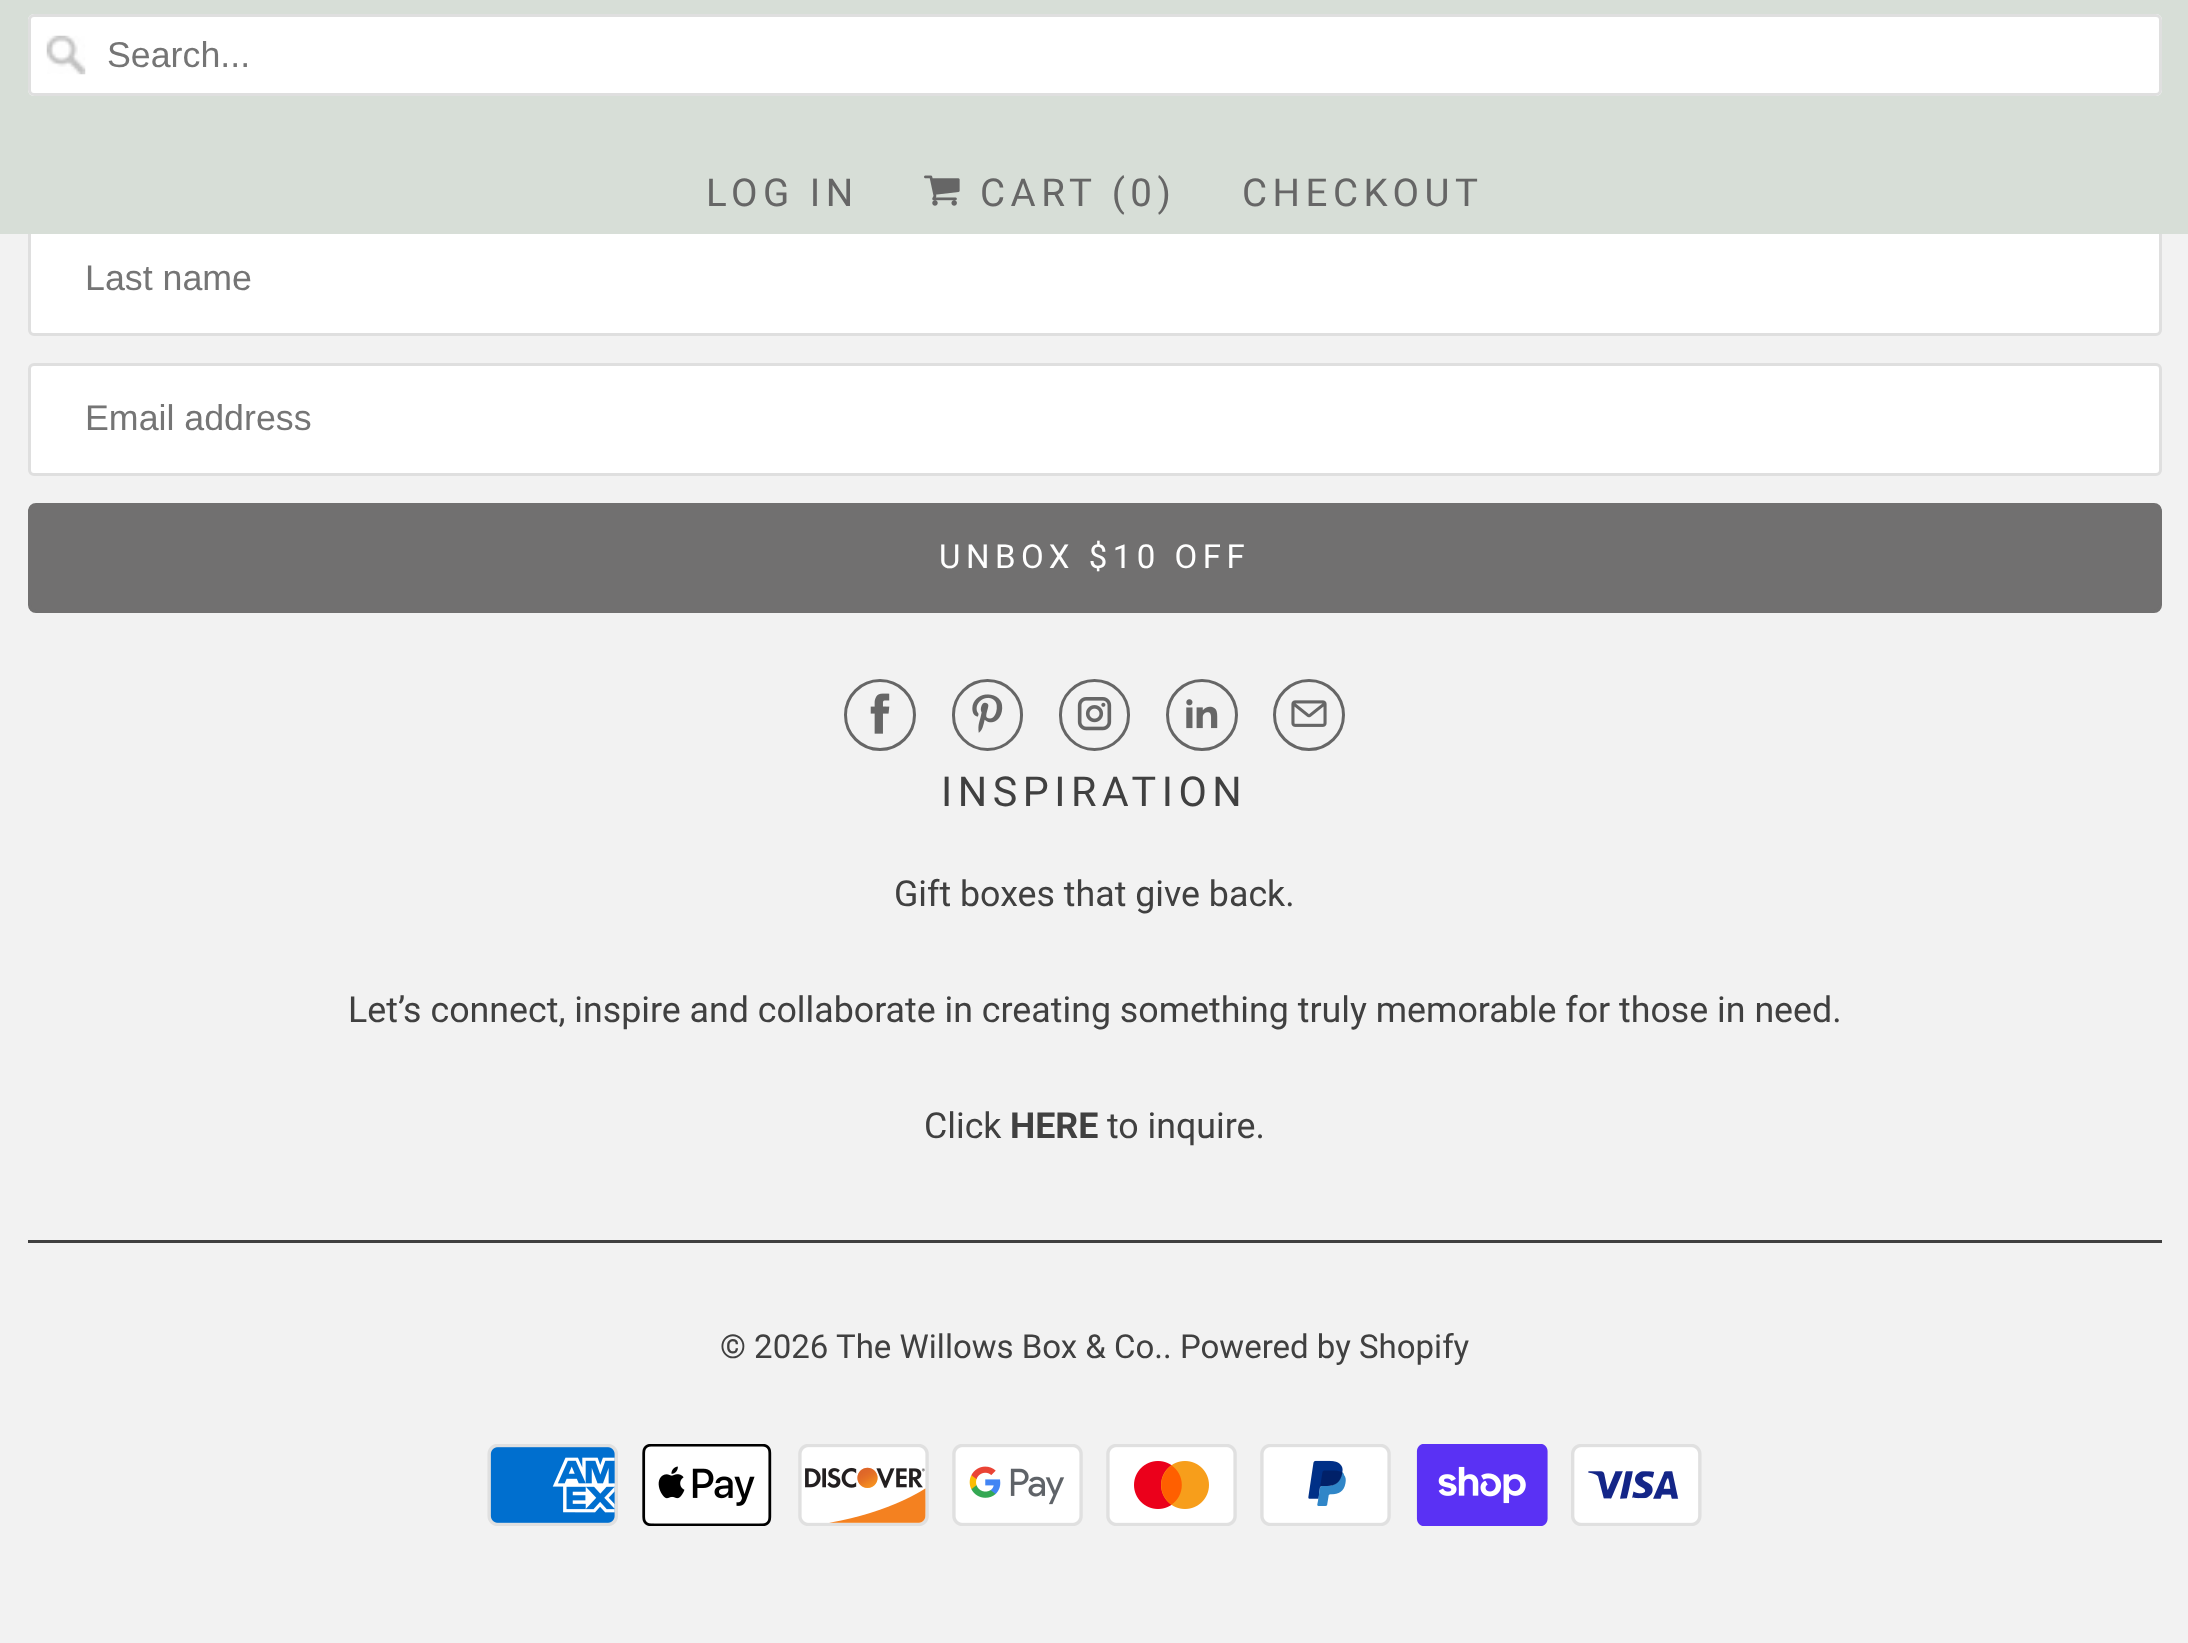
<svg xmlns="http://www.w3.org/2000/svg" xmlns:xlink="http://www.w3.org/1999/xlink" width="2188" height="1643" viewBox="0 0 2188 1643">
<style>
.cls-1{font:35.75px Liberation Sans;fill:#757575}
.cls-2{font:38.5px Roboto;letter-spacing:5.5px;fill:#666666}
.cls-3{font:33px Roboto;letter-spacing:5.5px;fill:#ffffff}
.cls-4{font:41.25px Roboto;letter-spacing:5.5px;fill:#404040}
.cls-5{font:35.75px Roboto;fill:#404040}
.cls-6{font:bold 35.75px Roboto;fill:#404040}
.cls-7{font:33px Roboto;fill:#404040}
</style>
<rect width="100%" height="100%" fill="#f2f2f2"/>
<rect fill="#ffffff" stroke="#dfdfdf" stroke-width="3" x="29.5" y="224.5" width="2131" height="110" rx="4.5"/>
<rect fill="#d7ded7" x="0" y="0" width="2188" height="234"/>
<rect fill="#ffffff" x="28" y="14" width="2134" height="82" rx="6"/>
<image xlink:href="image0.png" x="46" y="35" width="40" height="40"/>
<rect fill="none" stroke="#dfdfdf" stroke-width="3" x="29.5" y="15.5" width="2131" height="79" rx="4.5"/>
<image xlink:href="image1.png" x="924" y="175" width="36" height="31"/>
<rect fill="#ffffff" stroke="#dfdfdf" stroke-width="3" x="29.5" y="364.5" width="2131" height="110" rx="4.5"/>
<rect fill="#717070" stroke="#717070" stroke-width="3" x="29.5" y="504.5" width="2131" height="107" rx="6.5"/>
<circle fill="none" stroke="#666666" stroke-width="3" cx="880" cy="715" r="34.5"/>
<image xlink:href="image2.png" x="870" y="693" width="20" height="41"/>
<rect fill="none" stroke="#666666" stroke-width="3" x="953.5" y="680.5" width="68" height="69" rx="34"/>
<image xlink:href="image3.png" x="972" y="694" width="31" height="39"/>
<rect fill="none" stroke="#666666" stroke-width="3" x="1060.5" y="680.5" width="68" height="69" rx="34"/>
<image xlink:href="image4.png" x="1077" y="697" width="35" height="34"/>
<circle fill="none" stroke="#666666" stroke-width="3" cx="1202" cy="715" r="34.5"/>
<image xlink:href="image5.png" x="1186" y="699" width="32" height="30"/>
<circle fill="none" stroke="#666666" stroke-width="3" cx="1309" cy="715" r="34.5"/>
<image xlink:href="image6.png" x="1291" y="700" width="36" height="27"/>
<rect fill="#404040" x="28" y="1240" width="2134" height="3"/>
<image xlink:href="image7.png" x="487" y="1444" width="131" height="82"/>
<image xlink:href="image8.png" x="642" y="1444" width="130" height="82"/>
<image xlink:href="image9.png" x="798" y="1444" width="131" height="82"/>
<image xlink:href="image10.png" x="952" y="1444" width="131" height="82"/>
<image xlink:href="image11.png" x="1106" y="1444" width="131" height="82"/>
<image xlink:href="image12.png" x="1260" y="1444" width="131" height="82"/>
<image xlink:href="image13.png" x="1416" y="1444" width="132" height="82"/>
<image xlink:href="image14.png" x="1571" y="1444" width="131" height="82"/>
<text class="cls-1" x="107" y="67">Search...</text>
<text class="cls-2" x="706" y="206">LOG IN</text>
<text class="cls-2" x="980" y="206">CART (0)</text>
<text class="cls-2" x="1242" y="206">CHECKOUT</text>
<text class="cls-1" x="85" y="290">Last name</text>
<text class="cls-1" x="85" y="430">Email address</text>
<text class="cls-3" x="939" y="568">UNBOX $10 OFF</text>
<text class="cls-4" x="941" y="806">INSPIRATION</text>
<text class="cls-5" x="894" y="906">Gift boxes that give back.</text>
<text class="cls-5" x="348" y="1022">Let’s connect, inspire and collaborate in creating something truly memorable for those in need.</text>
<text class="cls-5" x="924" y="1138">Click</text>
<text class="cls-6" x="1010" y="1138">HERE</text>
<text class="cls-5" x="1107" y="1138">to inquire.</text>
<text class="cls-7" x="720" y="1358">© 2026</text>
<text class="cls-7" x="836" y="1358">The Willows Box &amp; Co.. Powered by Shopify</text>
</svg>
